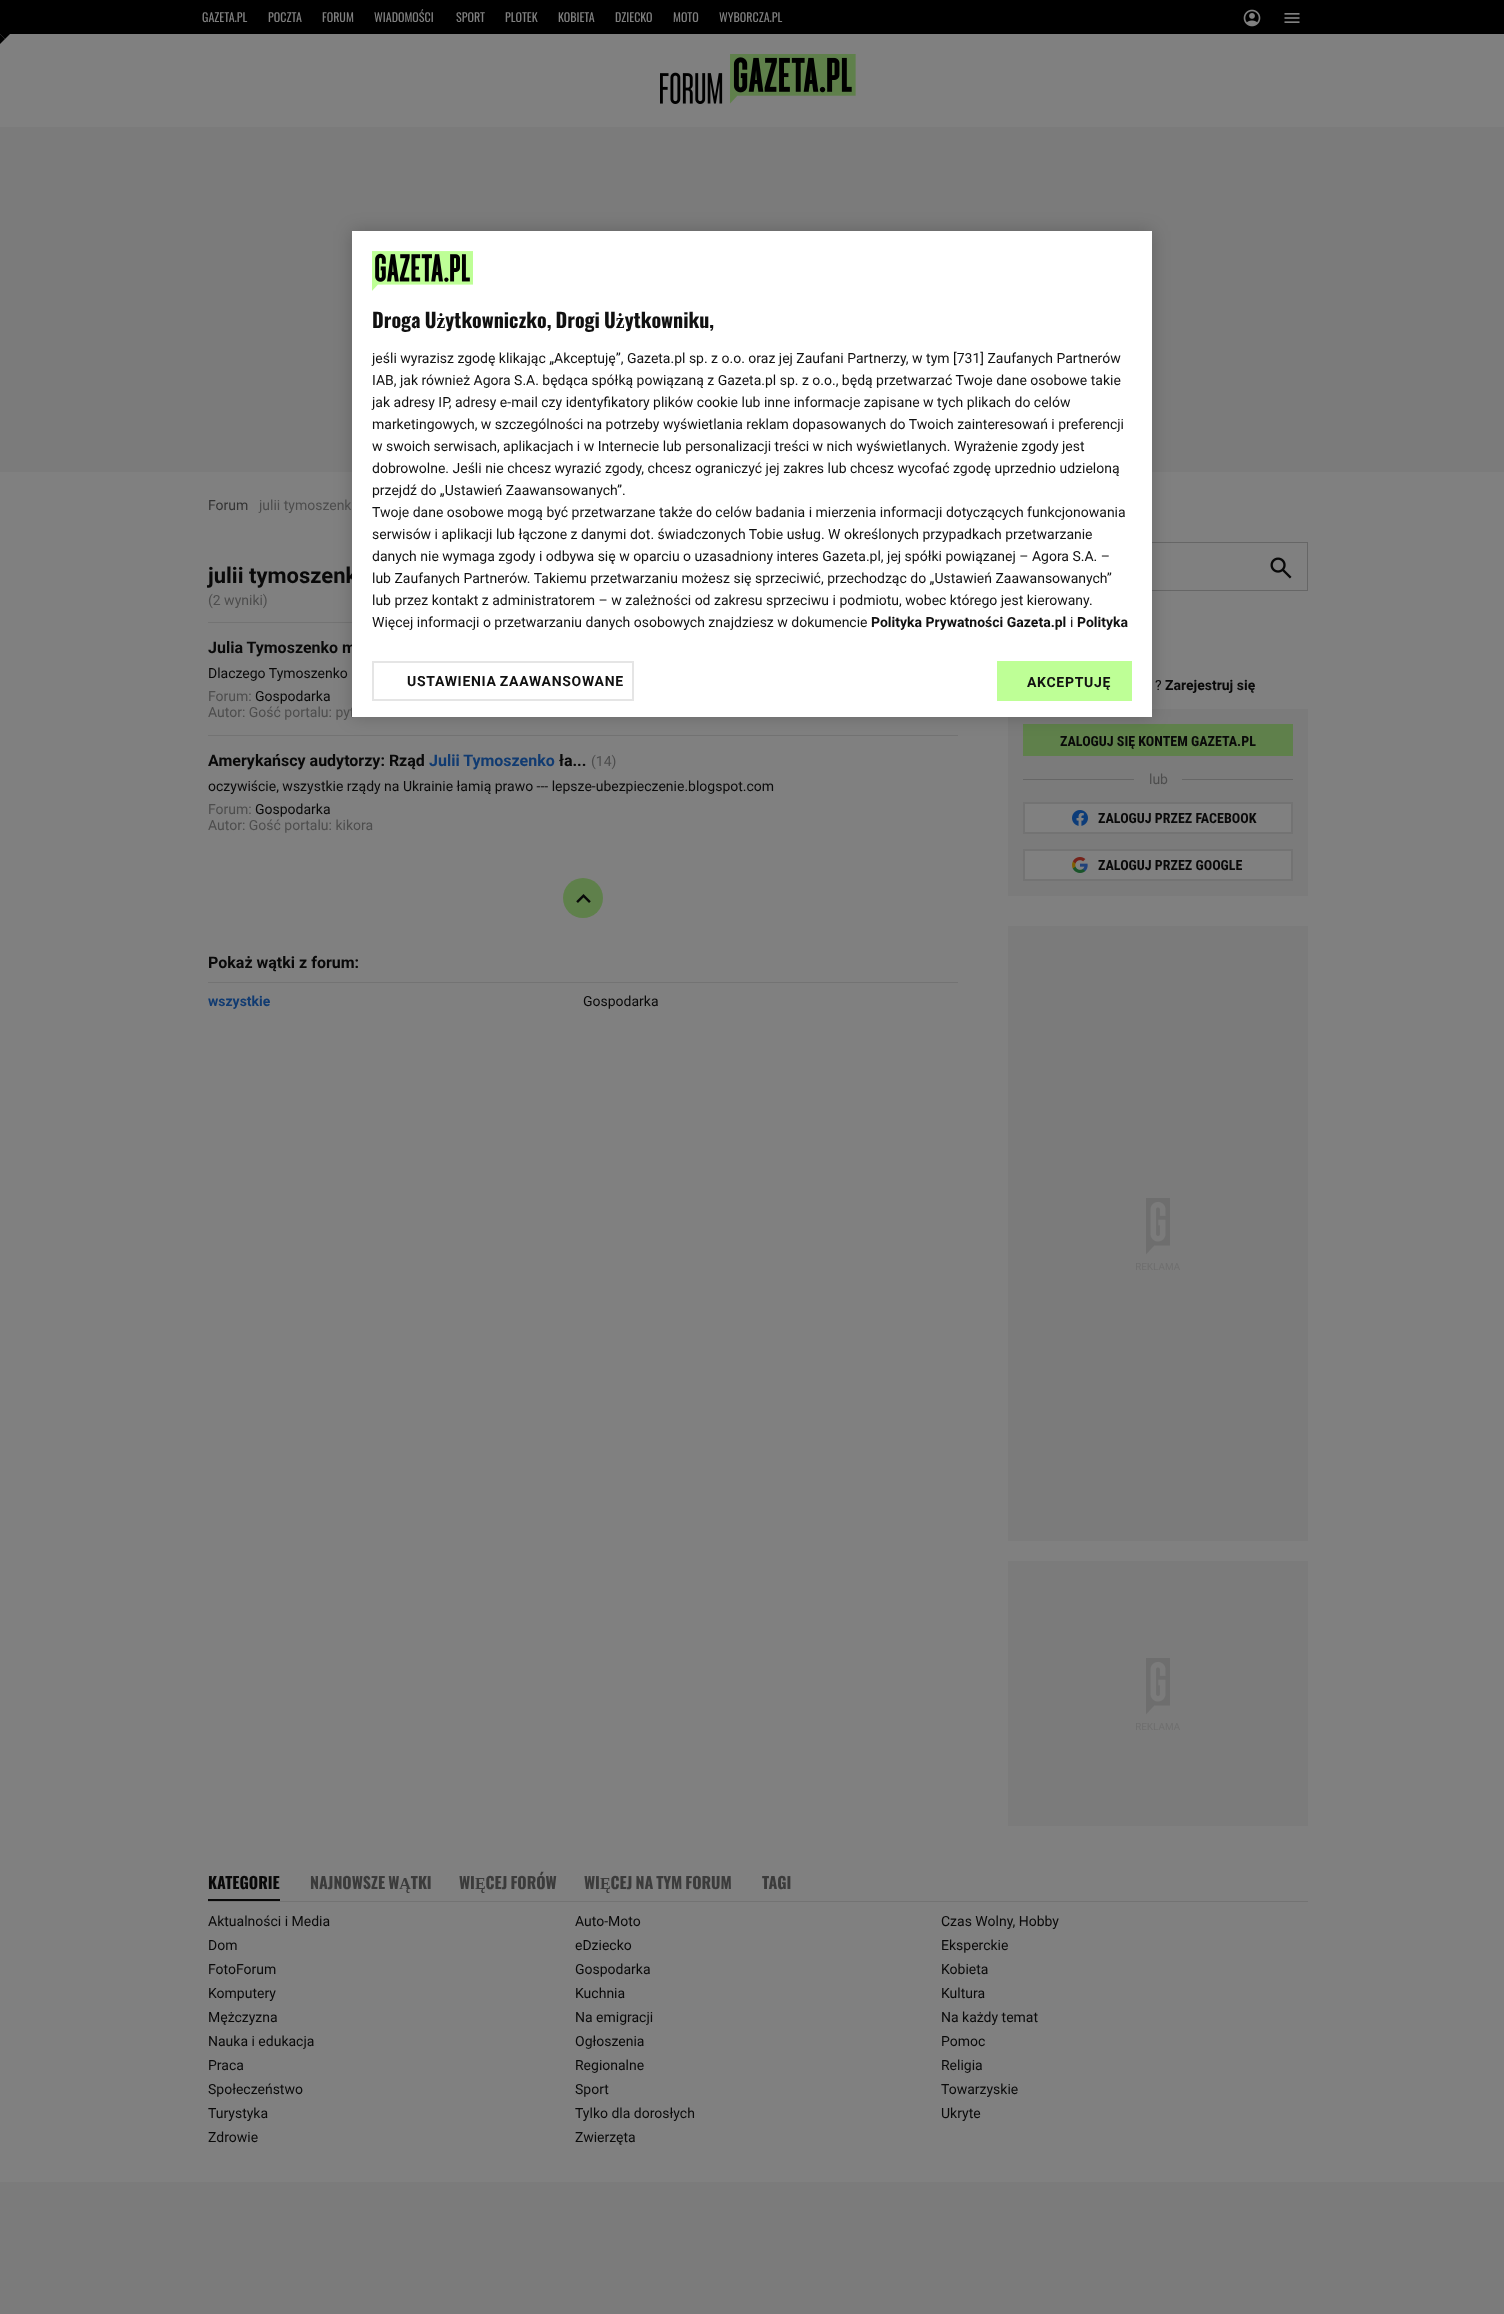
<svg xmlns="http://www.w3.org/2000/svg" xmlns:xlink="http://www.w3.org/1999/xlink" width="1504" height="2314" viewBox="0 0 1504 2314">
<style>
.cls-1{font:12px Oswald;fill:#808080}
.cls-2{font:14px Roboto;fill:#333333}
.cls-3{font:14px Roboto;fill:#4d4d4d}
.cls-4{font:bold 22px Roboto;fill:#090909}
.cls-5{font:bold 16px Roboto;fill:#090909}
.cls-6{font:14px Roboto;fill:#090909}
.cls-7{font:bold 14px 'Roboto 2';letter-spacing:0.7px;fill:#111111}
.cls-8{font:bold 14px Roboto;fill:#111111}
.cls-9{font:14px Roboto;fill:#111111}
.cls-10{font:bold 20px Oswald;fill:#111111}
.cls-11{font:bold 16px Roboto;fill:#113b71}
.cls-12{font:bold 14px Roboto;fill:#113b71}
.cls-13{font:bold 14px Roboto;fill:#090909}
.cls-14{font:bold 14px Roboto Condensed;fill:#090909}
.cls-15{font:bold 16px Oswald;fill:#090909}
.cls-16{font:bold 16px Oswald;fill:#3b3b3b}
</style>
<rect width="100%" height="100%" fill="#808080"/>
<rect fill="#000000" x="0" y="0" width="1504" height="34"/>
<image xlink:href="image0.png" x="1243" y="9" width="18" height="18"/>
<image xlink:href="image1.png" x="1284" y="13" width="16" height="10"/>
<path fill="#000000" d="M0 34H10L5 39Z"/>
<path fill="#000000" d="M0 44V34L5 39Z"/>
<image xlink:href="image2.png" x="660" y="54" width="196" height="50"/>
<rect fill="#7b7b7b" x="0" y="127" width="1504" height="345"/>
<rect fill="none" stroke="#666666" x="1008.5" y="542.5" width="299" height="48"/>
<rect fill="#737373" x="208" y="622" width="144" height="1"/>
<rect fill="#737373" x="208" y="735" width="750" height="1"/>
<rect fill="#7b7b7b" x="1008" y="709" width="300" height="187"/>
<rect fill="#5f804b" x="1023" y="724" width="270" height="32"/>
<rect fill="#000000" fill-opacity="0.2" filter="blur(9px)" x="352" y="231" width="800" height="486"/>
<image xlink:href="image4.png" x="1270" y="557" width="22" height="22"/>
<circle fill="#5f804b" cx="583" cy="898" r="20"/>
<image xlink:href="image5.png" x="576" y="894" width="15" height="9"/>
<rect fill="#737373" x="208" y="982" width="750" height="1"/>
<rect fill="#666666" x="1023" y="779" width="270" height="1"/>
<rect fill="#7b7b7b" x="1134" y="779" width="48" height="1"/>
<rect fill="#808080" stroke="#737373" stroke-width="2" x="1024" y="803" width="268" height="30"/>
<image xlink:href="image6.png" x="1072" y="810" width="16" height="16"/>
<rect fill="#808080" stroke="#737373" stroke-width="2" x="1024" y="850" width="268" height="30"/>
<image xlink:href="image7.png" x="1072" y="857" width="16" height="16"/>
<rect fill="#7b7b7b" x="1008" y="926" width="300" height="615"/>
<image xlink:href="image8.png" x="1136" y="1198" width="44" height="72"/>
<rect fill="#7b7b7b" x="1008" y="1561" width="300" height="265"/>
<image xlink:href="image8.png" x="1136" y="1658" width="44" height="72"/>
<rect fill="#737373" x="208" y="1901" width="1100" height="1"/>
<rect fill="#090909" x="208" y="1899" width="72" height="2"/>
<rect fill="#7b7b7b" x="0" y="2182" width="1504" height="132"/>
<text class="cls-1" x="202" y="22">GAZETA.PL</text>
<text class="cls-1" x="268" y="22">POCZTA</text>
<text class="cls-1" x="322" y="22">FORUM</text>
<text class="cls-1" x="374" y="22">WIADOMOŚCI</text>
<text class="cls-1" x="456" y="22">SPORT</text>
<text class="cls-1" x="505" y="22">PLOTEK</text>
<text class="cls-1" x="558" y="22">KOBIETA</text>
<text class="cls-1" x="615" y="22">DZIECKO</text>
<text class="cls-1" x="673" y="22">MOTO</text>
<text class="cls-1" x="719" y="22">WYBORCZA.PL</text>
<text class="cls-2" x="208" y="510">Forum</text>
<text class="cls-3" x="259" y="510">julii tymoszenk</text>
<text class="cls-4" x="208" y="583">julii tymoszenk</text>
<text class="cls-3" x="208" y="605">(2 wyniki)</text>
<text class="cls-5" x="208" y="653">Julia Tymoszenko m</text>
<text class="cls-6" x="208" y="678">Dlaczego Tymoszenko</text>
<text class="cls-3" x="208" y="701">Forum:</text>
<text class="cls-6" x="255" y="701">Gospodarka</text>
<text class="cls-3" x="208" y="717">Autor: Gość portalu: pyt</text>
<rect fill="#ffffff" x="352" y="231" width="800" height="486"/>
<rect fill="#beff96" x="997" y="661" width="135" height="40"/>
<text class="cls-7" x="1027" y="687">AKCEPTUJĘ</text>
<text class="cls-8" x="1077" y="627">Polityka</text>
<text class="cls-9" x="1070" y="627">i</text>
<text class="cls-8" x="871" y="627">Polityka Prywatności Gazeta.pl</text>
<text class="cls-9" x="372" y="627">Więcej informacji o przetwarzaniu danych osobowych znajdziesz w dokumencie</text>
<text class="cls-9" x="372" y="605">lub przez kontakt z administratorem – w zależności od zakresu sprzeciwu i podmiotu, wobec którego jest kierowany.</text>
<text class="cls-9" x="372" y="583">lub Zaufanych Partnerów. Takiemu przetwarzaniu możesz się sprzeciwić, przechodząc do „Ustawień Zaawansowanych”</text>
<text class="cls-9" x="372" y="561">danych nie wymaga zgody i odbywa się w oparciu o uzasadniony interes Gazeta.pl, jej spółki powiązanej – Agora S.A. –</text>
<text class="cls-9" x="372" y="539">serwisów i aplikacji lub łączone z danymi dot. świadczonych Tobie usług. W określonych przypadkach przetwarzanie</text>
<text class="cls-9" x="372" y="517">Twoje dane osobowe mogą być przetwarzane także do celów badania i mierzenia informacji dotyczących funkcjonowania</text>
<text class="cls-9" x="372" y="495">przejdź do „Ustawień Zaawansowanych”.</text>
<text class="cls-9" x="372" y="473">dobrowolne. Jeśli nie chcesz wyrazić zgody, chcesz ograniczyć jej zakres lub chcesz wycofać zgodę uprzednio udzieloną</text>
<text class="cls-9" x="372" y="451">w swoich serwisach, aplikacjach i w Internecie lub personalizacji treści w nich wyświetlanych. Wyrażenie zgody jest</text>
<text class="cls-9" x="372" y="429">marketingowych, w szczególności na potrzeby wyświetlania reklam dopasowanych do Twoich zainteresowań i preferencji</text>
<text class="cls-9" x="372" y="407">jak adresy IP, adresy e-mail czy identyfikatory plików cookie lub inne informacje zapisane w tych plikach do celów</text>
<text class="cls-9" x="372" y="385">IAB, jak również Agora S.A. będąca spółką powiązaną z Gazeta.pl sp. z o.o., będą przetwarzać Twoje dane osobowe takie</text>
<text class="cls-9" x="372" y="363">jeśli wyrazisz zgodę klikając „Akceptuję”, Gazeta.pl sp. z o.o. oraz jej Zaufani Partnerzy, w tym [731] Zaufanych Partnerów</text>
<text class="cls-10" x="372" y="328" word-spacing="-1">Droga Użytkowniczko, Drogi Użytkowniku,</text>
<image xlink:href="image3.png" x="372" y="251" width="101" height="40"/>
<rect fill="none" stroke="#e5e5e5" stroke-width="2" x="373" y="662" width="260" height="38"/>
<text class="cls-7" x="407" y="686" word-spacing="-1">USTAWIENIA ZAAWANSOWANE</text>
<text class="cls-5" x="208" y="766">Amerykańscy audytorzy: Rząd</text>
<text class="cls-11" x="429" y="766">Julii Tymoszenko</text>
<text class="cls-5" x="559" y="766">ła...</text>
<text class="cls-3" x="591" y="766">(14)</text>
<text class="cls-6" x="208" y="791">oczywiście, wszystkie rządy na Ukrainie łamią prawo --- lepsze-ubezpieczenie.blogspot.com</text>
<text class="cls-3" x="208" y="814">Forum:</text>
<text class="cls-6" x="255" y="814">Gospodarka</text>
<text class="cls-3" x="208" y="830">Autor: Gość portalu: kikora</text>
<text class="cls-5" x="208" y="968">Pokaż wątki z forum:</text>
<text class="cls-12" x="208" y="1006">wszystkie</text>
<text class="cls-6" x="583" y="1006">Gospodarka</text>
<text class="cls-6" x="1155" y="690">?</text>
<text class="cls-13" x="1165" y="690">Zarejestruj się</text>
<text class="cls-14" x="1060" y="746">ZALOGUJ SIĘ KONTEM GAZETA.PL</text>
<text class="cls-3" x="1149" y="784">lub</text>
<text class="cls-14" x="1098" y="823">ZALOGUJ PRZEZ FACEBOOK</text>
<text class="cls-14" x="1098" y="870">ZALOGUJ PRZEZ GOOGLE</text>
<text class="cls-15" x="208" y="1889">KATEGORIE</text>
<text class="cls-16" x="310" y="1889" word-spacing="-1">NAJNOWSZE WĄTKI</text>
<text class="cls-16" x="459" y="1889" word-spacing="-1">WIĘCEJ FORÓW</text>
<text class="cls-16" x="584" y="1889" word-spacing="-1">WIĘCEJ NA TYM FORUM</text>
<text class="cls-16" x="762" y="1889">TAGI</text>
<text class="cls-6" x="208" y="1926">Aktualności i Media</text>
<text class="cls-6" x="575" y="1926">Auto-Moto</text>
<text class="cls-6" x="941" y="1926">Czas Wolny, Hobby</text>
<text class="cls-6" x="208" y="1950">Dom</text>
<text class="cls-6" x="575" y="1950">eDziecko</text>
<text class="cls-6" x="941" y="1950">Eksperckie</text>
<text class="cls-6" x="208" y="1974">FotoForum</text>
<text class="cls-6" x="575" y="1974">Gospodarka</text>
<text class="cls-6" x="941" y="1974">Kobieta</text>
<text class="cls-6" x="208" y="1998">Komputery</text>
<text class="cls-6" x="575" y="1998">Kuchnia</text>
<text class="cls-6" x="941" y="1998">Kultura</text>
<text class="cls-6" x="208" y="2022">Mężczyzna</text>
<text class="cls-6" x="575" y="2022">Na emigracji</text>
<text class="cls-6" x="941" y="2022">Na każdy temat</text>
<text class="cls-6" x="208" y="2046">Nauka i edukacja</text>
<text class="cls-6" x="575" y="2046">Ogłoszenia</text>
<text class="cls-6" x="941" y="2046">Pomoc</text>
<text class="cls-6" x="208" y="2070">Praca</text>
<text class="cls-6" x="575" y="2070">Regionalne</text>
<text class="cls-6" x="941" y="2070">Religia</text>
<text class="cls-6" x="208" y="2094">Społeczeństwo</text>
<text class="cls-6" x="575" y="2094">Sport</text>
<text class="cls-6" x="941" y="2094">Towarzyskie</text>
<text class="cls-6" x="208" y="2118">Turystyka</text>
<text class="cls-6" x="575" y="2118">Tylko dla dorosłych</text>
<text class="cls-6" x="941" y="2118">Ukryte</text>
<text class="cls-6" x="208" y="2142">Zdrowie</text>
<text class="cls-6" x="575" y="2142">Zwierzęta</text>
</svg>
